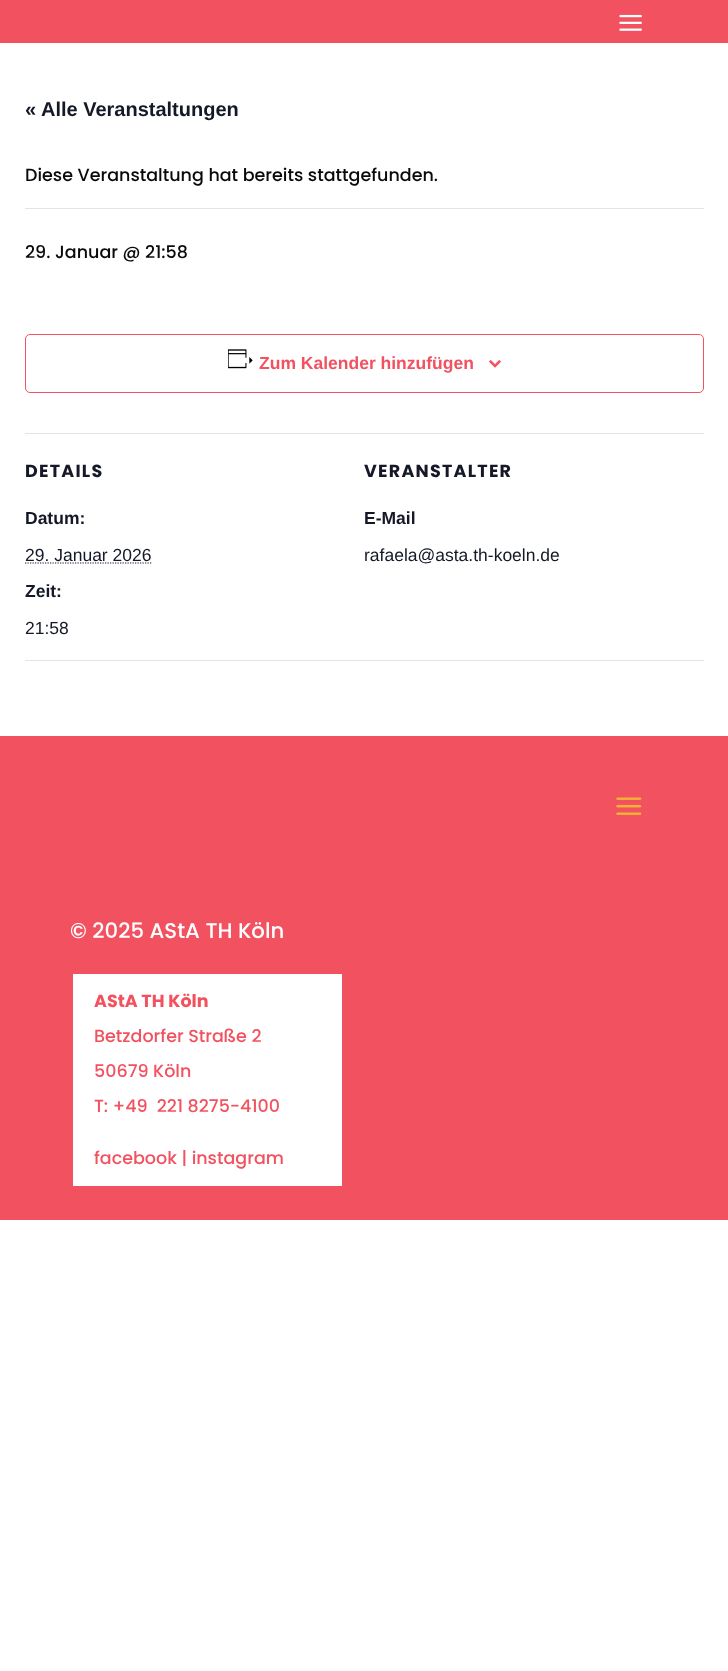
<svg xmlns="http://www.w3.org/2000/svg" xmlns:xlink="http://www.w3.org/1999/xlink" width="728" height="1671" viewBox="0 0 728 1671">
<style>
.cls-1{font:bold 20px Liberation Sans;fill:#141827}
.cls-2{font:500 17.5px Poppins;fill:#0a0a0a}
.cls-3{font:bold 17.5px Liberation Sans;fill:#f25260}
.cls-4{font:bold 17.5px Poppins;letter-spacing:1.25px;fill:#141827}
.cls-5{font:bold 17.5px Liberation Sans;fill:#141827}
.cls-6{font:17.5px Liberation Sans;fill:#141827}
.cls-7{font:500 21.25px Poppins;fill:#ffffff}
.cls-8{font:bold 17.5px Poppins;fill:#f25260}
.cls-9{font:500 17.5px Poppins;fill:#f25260}
</style>
<rect width="100%" height="100%" fill="#ffffff"/>
<rect fill="#f25260" x="0" y="0" width="728" height="43"/>
<image xlink:href="image0.png" x="619" y="14" width="23" height="17"/>
<rect fill="#e4e4e4" x="25" y="208" width="679" height="1"/>
<rect fill="none" stroke="#f25260" x="25.5" y="334.5" width="678" height="58" rx="4.5"/>
<image xlink:href="image1.png" x="228" y="349" width="25" height="20"/>
<image xlink:href="image2.png" x="489" y="360" width="12" height="8"/>
<rect fill="#e4e4e4" x="25" y="433" width="679" height="1"/>
<path fill="none" stroke="#141827" stroke-width="1.2" stroke-dasharray="1.25 1.25" d="M25 563H151.5"/>
<rect fill="#e4e4e4" x="25" y="660" width="679" height="1"/>
<rect fill="#f25260" x="0" y="736" width="728" height="484"/>
<image xlink:href="image3.png" x="616" y="797" width="26" height="18"/>
<rect fill="#ffffff" x="73" y="974" width="269" height="212"/>
<text class="cls-1" x="25" y="116">« Alle Veranstaltungen</text>
<text class="cls-2" x="25" y="181">Diese Veranstaltung hat bereits stattgefunden.</text>
<text class="cls-2" x="25" y="258">29. Januar @ 21:58</text>
<text class="cls-3" x="259" y="369">Zum Kalender hinzufügen</text>
<text class="cls-4" x="25" y="477">DETAILS</text>
<text class="cls-5" x="25" y="524">Datum:</text>
<text class="cls-6" x="25" y="561">29. Januar 2026</text>
<text class="cls-5" x="25" y="597">Zeit:</text>
<text class="cls-6" x="25" y="634">21:58</text>
<text class="cls-4" x="364" y="477">VERANSTALTER</text>
<text class="cls-5" x="364" y="524">E-Mail</text>
<text class="cls-6" x="364" y="561">rafaela@asta.th-koeln.de</text>
<text class="cls-7" x="70" y="938">© 2025 AStA TH Köln</text>
<text class="cls-8" x="94" y="1007">AStA TH Köln</text>
<text class="cls-9" x="94" y="1042">Betzdorfer Straße 2</text>
<text class="cls-9" x="94" y="1077">50679 Köln</text>
<text class="cls-9" xml:space="preserve" x="94" y="1112">T: +49  221 8275-4100</text>
<text class="cls-9" x="94" y="1164">facebook | instagram</text>
</svg>
